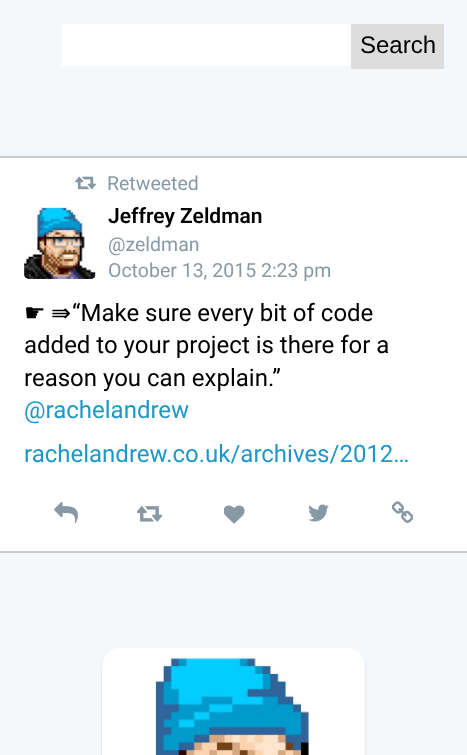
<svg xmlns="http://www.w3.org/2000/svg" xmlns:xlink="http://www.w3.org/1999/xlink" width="467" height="755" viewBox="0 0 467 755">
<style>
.cls-1{font:24px Liberation Sans;fill:#000000}
.cls-2{font:19.5px Roboto;fill:#8899a6}
.cls-3{font:600 21px Roboto;fill:#000000}
.cls-4{font:24px DejaVu Sans;fill:#000000}
.cls-5{font:24px Roboto;fill:#000000}
.cls-6{font:24px Roboto;fill:#1f98c7}
</style>
<rect width="100%" height="100%" fill="#f5f8fa"/>
<rect fill="#ffffff" x="62" y="24" width="289" height="42"/>
<rect fill="#dddddd" x="351" y="24" width="93" height="45"/>
<rect fill="#ffffff" x="0" y="158" width="467" height="393"/>
<rect fill="#cccccc" x="0" y="156" width="467" height="2"/>
<rect fill="#cccccc" x="0" y="551" width="467" height="2"/>
<image xlink:href="image0.png" x="75" y="176" width="21" height="14"/>
<image xlink:href="image1.png" x="24" y="207" width="72" height="72"/>
<image xlink:href="image2.png" x="54" y="501" width="24" height="23"/>
<image xlink:href="image3.png" x="137" y="506" width="26" height="16"/>
<image xlink:href="image4.png" x="224" y="505" width="21" height="19"/>
<image xlink:href="image5.png" x="308" y="504" width="21" height="18"/>
<image xlink:href="image6.png" x="392" y="501" width="21" height="22"/>
<rect fill="#8899a6" fill-opacity="0.35" filter="blur(1px)" x="102" y="650" width="263" height="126" rx="18"/>
<rect fill="#ffffff" stroke="#ffffff" stroke-width="8" x="106" y="652" width="255" height="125" rx="14"/>
<image xlink:href="image7.png" x="155" y="656" width="156" height="99"/>
<text class="cls-1" x="360" y="53">Search</text>
<text class="cls-2" x="107" y="190">Retweeted</text>
<text class="cls-3" x="108" y="223">Jeffrey Zeldman</text>
<text class="cls-2"><tspan x="108" y="251">@zeldman</tspan><tspan x="108" y="277">October 13, 2015 2:23 pm</tspan></text>
<text class="cls-4" x="24" y="321">☛</text>
<text class="cls-4" x="51" y="321">⇛</text>
<text class="cls-5" x="72" y="321">“Make sure every bit of code</text>
<text class="cls-5"><tspan x="24" y="353">added to your project is there for a</tspan><tspan x="24" y="386">reason you can explain.”</tspan></text>
<text class="cls-6"><tspan x="24" y="418">@rachelandrew</tspan><tspan x="24" y="462">rachelandrew.co.uk/archives/2012…</tspan></text>
</svg>
